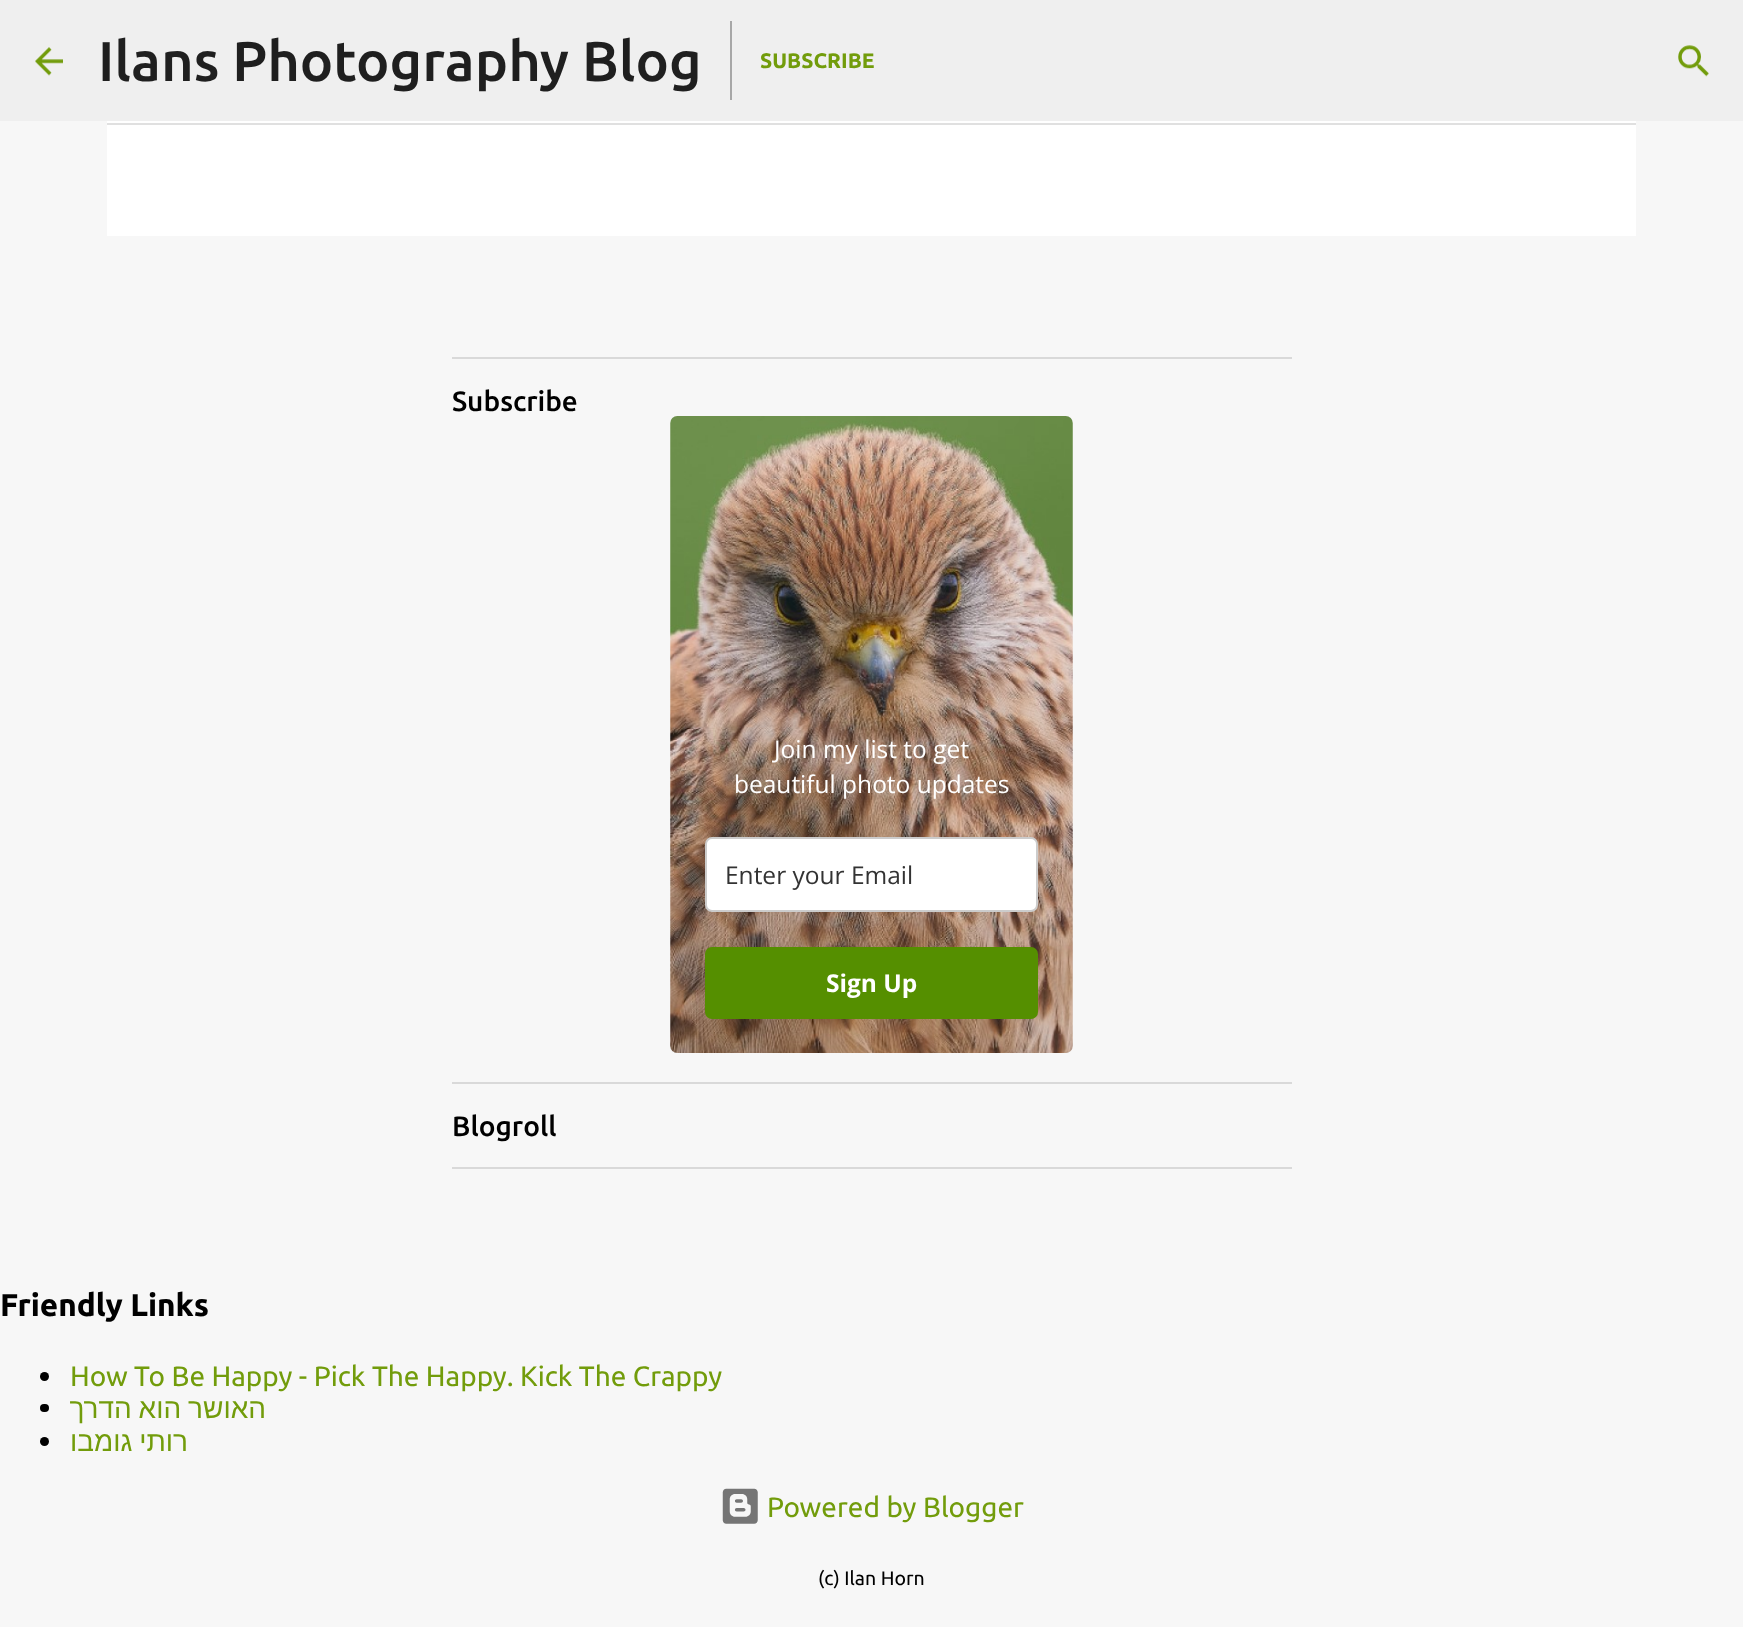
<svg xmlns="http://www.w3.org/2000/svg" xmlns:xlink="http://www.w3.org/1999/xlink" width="1743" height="1627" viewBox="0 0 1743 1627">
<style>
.cls-1{font:500 56px Ubuntu;fill:#1f1f1f}
.cls-2{font:bold 21px Ubuntu;fill:#729c0b}
.cls-3{font:500 28px Ubuntu;fill:#000000}
.cls-4{font:24.5px Open Sans;fill:#ffffff}
.cls-5{font:24.5px Open Sans;fill:#333333}
.cls-6{font:bold 24.5px Open Sans;fill:#ffffff}
.cls-7{font:bold 31.5px Ubuntu;fill:#000000}
.cls-8{font:28px Ubuntu;fill:#729c0b}
.cls-9{font:28px Liberation Sans;direction:rtl;fill:#729c0b}
.cls-10{font:19.5px Ubuntu;fill:#000000}
</style>
<rect width="100%" height="100%" fill="#f7f7f7"/>
<rect fill="#efefef" x="0" y="0" width="1743" height="121"/>
<image xlink:href="image0.png" x="35" y="47" width="28" height="29"/>
<rect fill="#a7a7a7" x="730" y="21" width="2" height="79"/>
<image xlink:href="image1.png" x="1678" y="45" width="31" height="32"/>
<rect fill="#ffffff" x="107" y="121" width="1529" height="2"/>
<rect fill="#ffffff" x="107" y="125" width="1529" height="111"/>
<rect fill="#e0e0e0" x="107" y="123" width="1529" height="2"/>
<rect fill="#d9d9d9" x="452" y="357" width="840" height="2"/>
<image xlink:href="image2.png" x="670" y="416" width="403" height="637"/>
<rect fill="#ffffff" stroke="#cccccc" stroke-width="2" x="706" y="838" width="331" height="73" rx="6"/>
<rect fill="#558f00" x="705" y="947" width="333" height="72" rx="7"/>
<rect fill="#d9d9d9" x="452" y="1082" width="840" height="2"/>
<rect fill="#d9d9d9" x="452" y="1167" width="840" height="2"/>
<circle fill="#000000" cx="44.5" cy="1376.5" r="4.5"/>
<rect fill="#000000" x="40" y="1404" width="9" height="8" rx="4"/>
<circle fill="#000000" cx="44.5" cy="1441.5" r="4.5"/>
<image xlink:href="image3.png" x="722" y="1488" width="36" height="36"/>
<text class="cls-1" x="98" y="81">Ilans Photography Blog</text>
<text class="cls-2" x="760" y="68">SUBSCRIBE</text>
<text class="cls-3" x="452" y="411">Subscribe</text>
<text class="cls-4" x="774" y="758">Join my list to get</text>
<text class="cls-4" x="734" y="793">beautiful photo updates</text>
<text class="cls-5" x="725" y="884">Enter your Email</text>
<text class="cls-6" x="826" y="992">Sign Up</text>
<text class="cls-3" x="452" y="1136">Blogroll</text>
<text class="cls-7" x="0" y="1316">Friendly Links</text>
<text class="cls-8" x="70" y="1386">How To Be Happy - Pick The Happy. Kick The Crappy</text>
<text class="cls-9" x="266" y="1418" word-spacing="-1">האושר הוא הדרך</text>
<text class="cls-9" x="188" y="1451" word-spacing="-1">רותי גומבו</text>
<text class="cls-8" x="767" y="1517">Powered by Blogger</text>
<text class="cls-10" x="818" y="1585">(c) Ilan Horn</text>
</svg>
